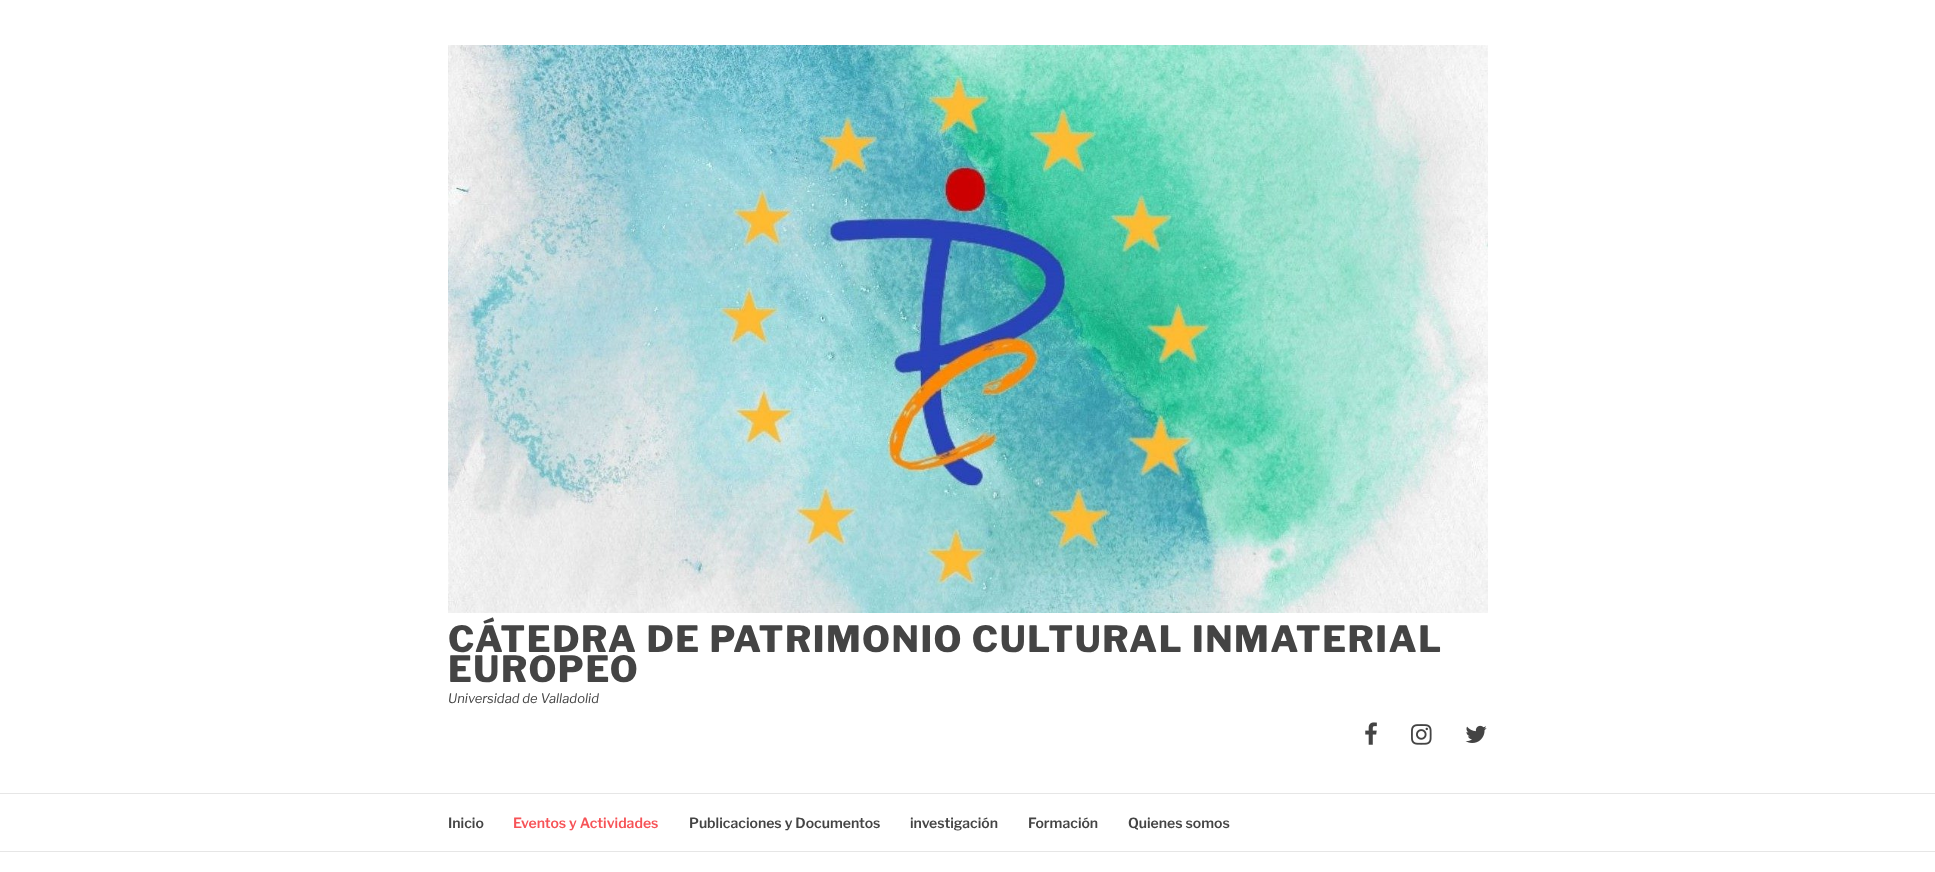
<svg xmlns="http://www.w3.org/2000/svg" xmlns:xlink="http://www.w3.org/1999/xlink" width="1935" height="872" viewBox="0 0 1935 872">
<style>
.cls-1{font:800 36px Libre Franklin;letter-spacing:1.5px;fill:#444444}
.cls-2{font:italic 13px Libre Franklin;fill:#444444}
.cls-3{font:600 14px Libre Franklin;fill:#444444}
.cls-4{font:600 14px Libre Franklin;fill:#f75357}
</style>
<rect width="100%" height="100%" fill="#ffffff"/>
<image xlink:href="image0.png" x="448" y="45" width="1040" height="568"/>
<image xlink:href="image1.png" x="1365" y="722" width="12" height="23"/>
<image xlink:href="image2.png" x="1411" y="724" width="21" height="21"/>
<image xlink:href="image3.png" x="1465" y="725" width="22" height="18"/>
<rect fill="#e6e6e6" x="0" y="793" width="1935" height="1"/>
<rect fill="#e6e6e6" x="0" y="851" width="1935" height="1"/>
<text class="cls-1"><tspan x="448" y="652">CÁTEDRA DE PATRIMONIO CULTURAL INMATERIAL</tspan><tspan x="448" y="682">EUROPEO</tspan></text>
<text class="cls-2" x="448" y="703">Universidad de Valladolid</text>
<text class="cls-3" x="448" y="828">Inicio</text>
<text class="cls-4" x="513" y="828">Eventos y Actividades</text>
<text class="cls-3" x="689" y="828">Publicaciones y Documentos</text>
<text class="cls-3" x="910" y="828">investigación</text>
<text class="cls-3" x="1028" y="828">Formación</text>
<text class="cls-3" x="1128" y="828">Quienes somos</text>
</svg>
